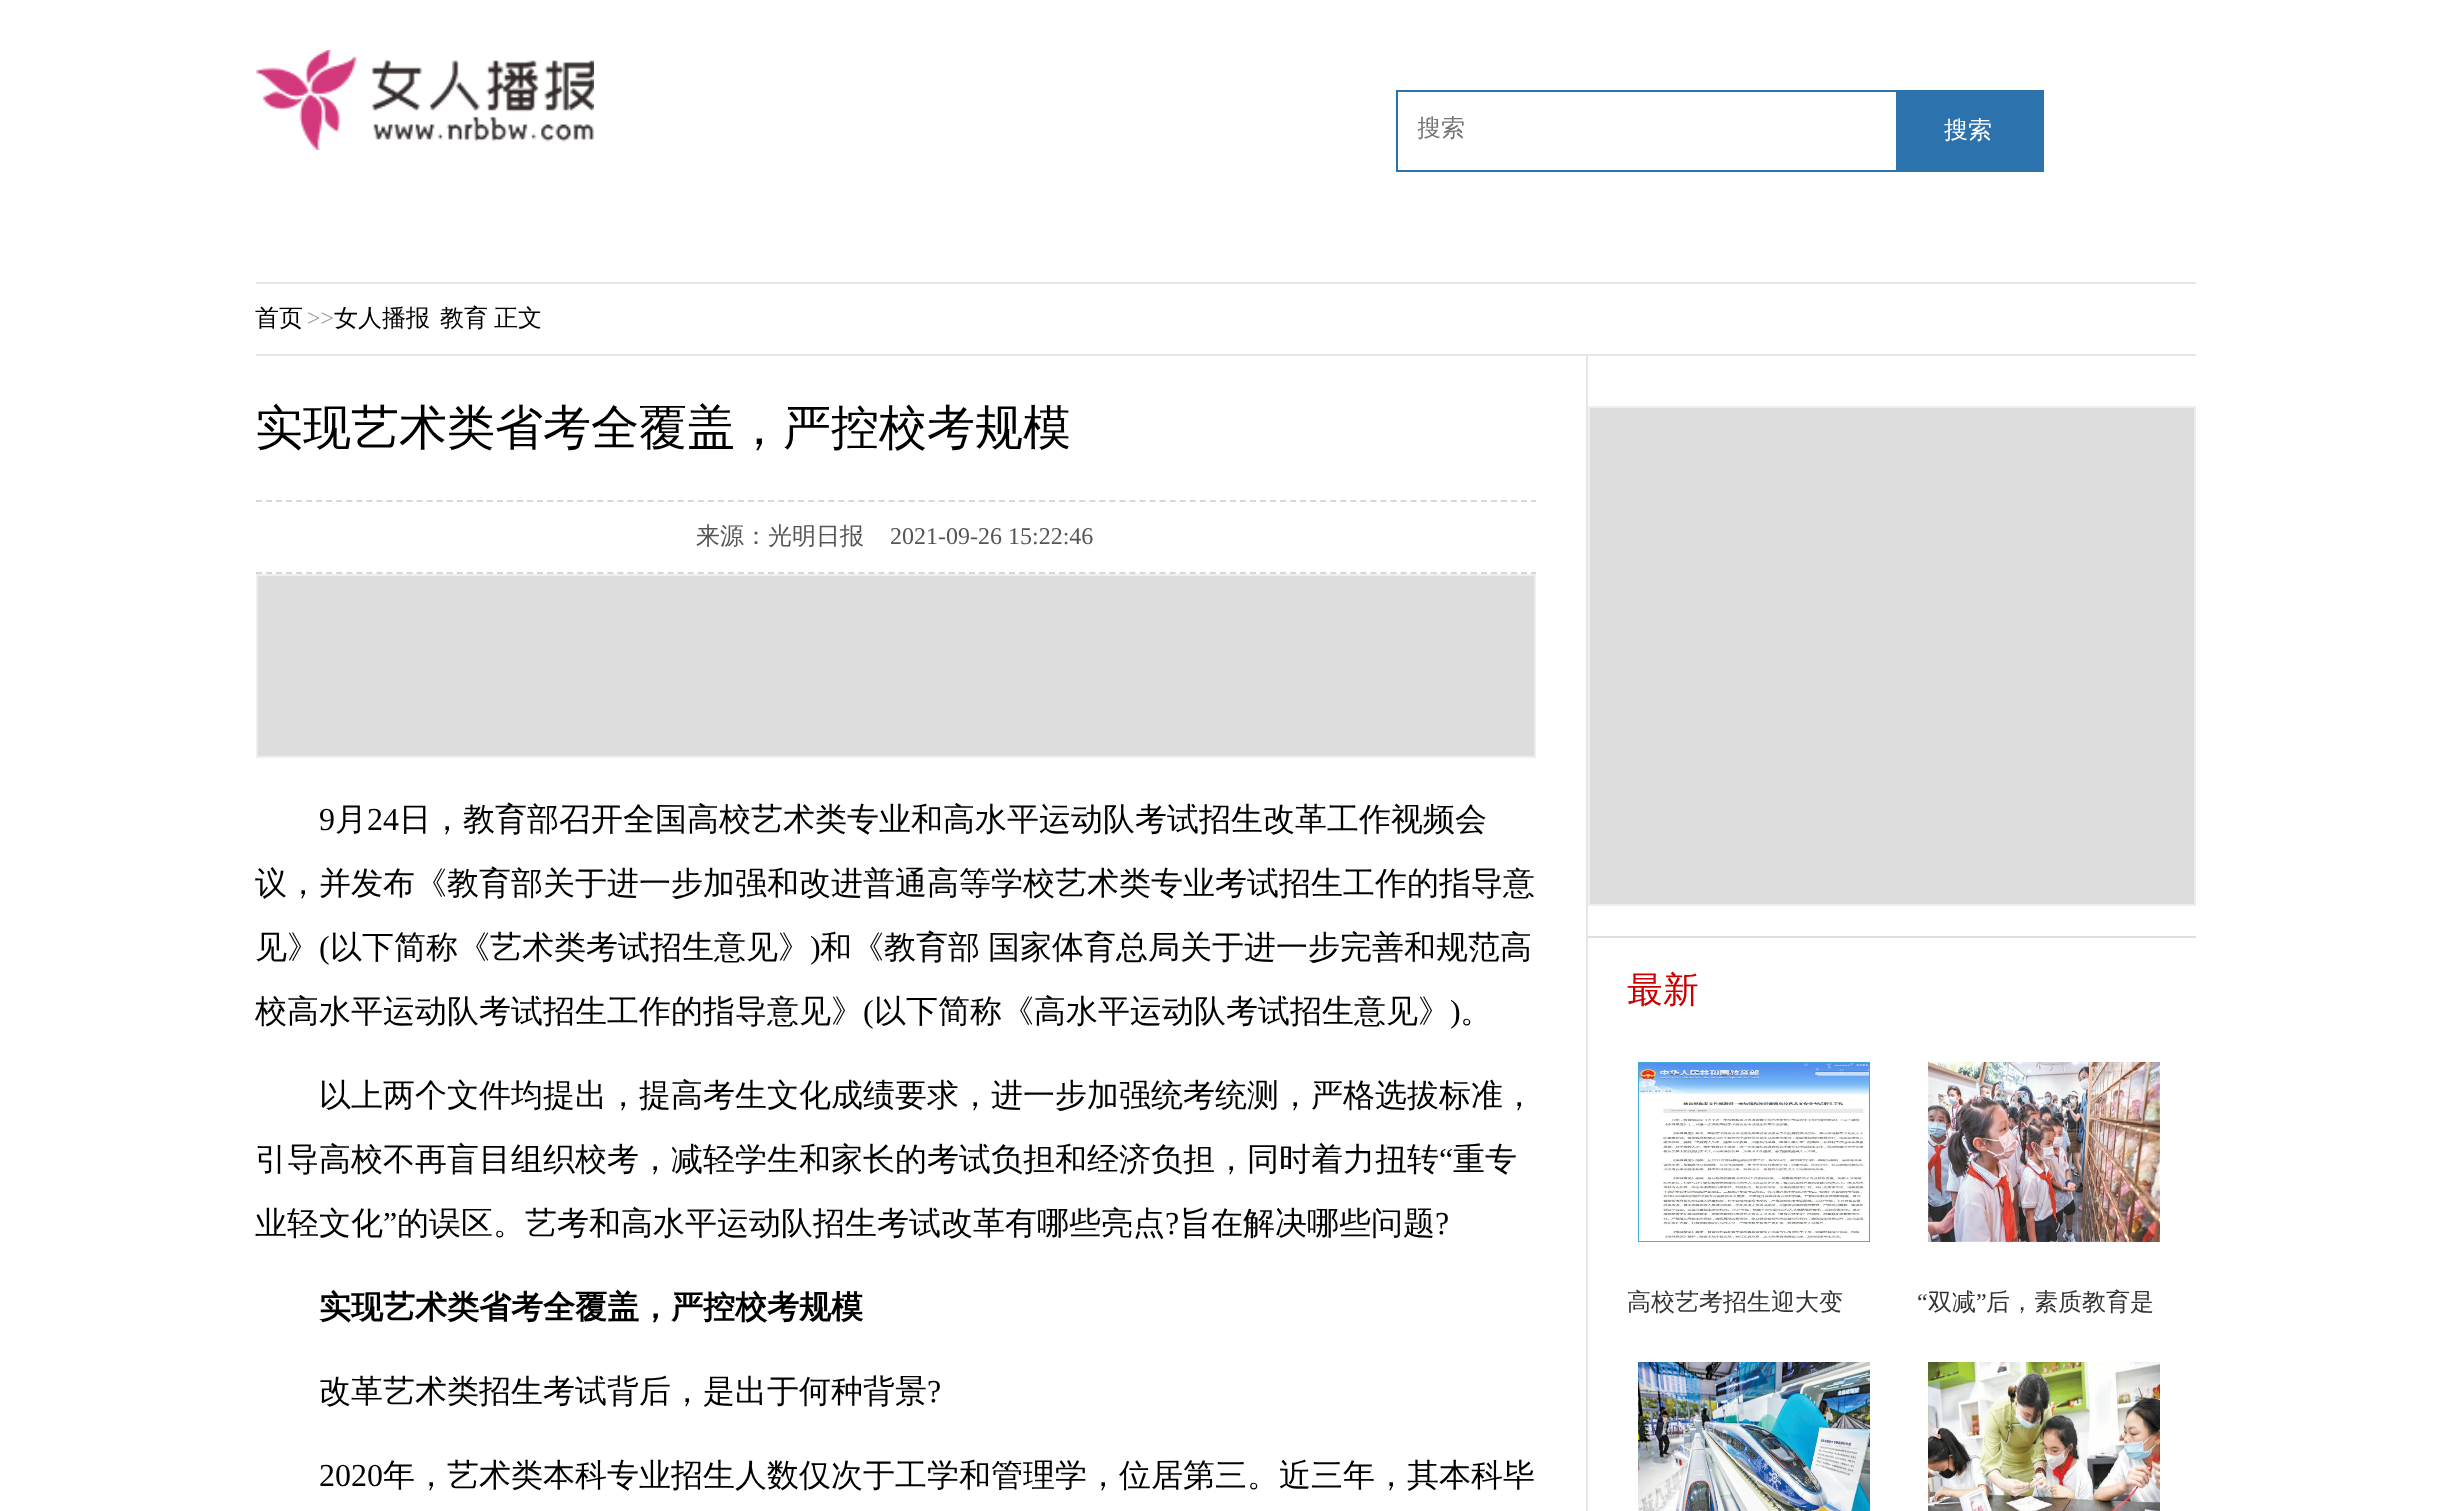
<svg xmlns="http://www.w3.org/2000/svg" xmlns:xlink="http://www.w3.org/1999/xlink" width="2450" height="1511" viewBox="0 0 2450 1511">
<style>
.cls-1{font:500 24px WenQuanYi Zen Hei;fill:#757575}
.cls-2{font:500 24px WenQuanYi Zen Hei;fill:#ffffff}
.cls-3{font:500 24px WenQuanYi Zen Hei;fill:#000000}
.cls-4{font:24px Liberation Serif;fill:#999999}
.cls-5{font:500 48px WenQuanYi Zen Hei;fill:#000000}
.cls-6{font:500 24px WenQuanYi Zen Hei;fill:#555555}
.cls-7{font:24px Liberation Serif;fill:#555555}
.cls-8{font:32px Liberation Serif;fill:#000000}
.cls-9{font:500 32px WenQuanYi Zen Hei;fill:#000000}
.cls-10{font:bold 32px WenQuanYi Zen Hei;fill:#000000}
.cls-11{font:500 36px WenQuanYi Zen Hei;fill:#cc0000}
.cls-12{font:500 24px WenQuanYi Zen Hei;fill:#333333}
.cls-13{font:24px Liberation Serif;fill:#333333}
</style>
<defs>
<clipPath id="clip1"><rect x="1418" y="112" width="466" height="34"/></clipPath>
</defs>
<rect width="100%" height="100%" fill="#ffffff"/>
<image xlink:href="image0.png" x="256" y="50" width="338" height="100"/>
<rect fill="none" stroke="#2c72ad" stroke-width="2" x="1397" y="91" width="646" height="80"/>
<rect fill="#2c72ad" x="1896" y="92" width="146" height="78"/>
<rect fill="#e6e6e6" x="256" y="282" width="1940" height="2"/>
<rect fill="#e6e6e6" x="256" y="354" width="1940" height="2"/>
<rect fill="#e6e6e6" x="1586" y="356" width="2" height="1155"/>
<path fill="none" stroke="#d7d7d7" stroke-width="2" stroke-dasharray="6 4.04" d="M256 501H1536"/>
<path fill="none" stroke="#d7d7d7" stroke-width="2" stroke-dasharray="6 4.04" d="M256 573H1536"/>
<rect fill="#dddddd" stroke="#eeeeee" stroke-width="2" x="257" y="575" width="1278" height="182"/>
<rect fill="#dddddd" stroke="#eeeeee" stroke-width="2" x="1589" y="407" width="606" height="498"/>
<rect fill="#dfdfdf" x="1588" y="936" width="608" height="2"/>
<image xlink:href="image1.png" x="1638" y="1062" width="232" height="180"/>
<image xlink:href="image2.png" x="1928" y="1062" width="232" height="180"/>
<image xlink:href="image3.png" x="1638" y="1362" width="232" height="149"/>
<image xlink:href="image4.png" x="1928" y="1362" width="232" height="149"/>
<g clip-path="url(#clip1)">
<text class="cls-1" x="1417" y="136">搜索</text>
</g>
<text class="cls-2" x="1944" y="138">搜索</text>
<text class="cls-3" x="255" y="326">首页</text>
<text class="cls-4" x="307" y="326">&gt;&gt;</text>
<text class="cls-3" x="334" y="326">女人播报</text>
<text class="cls-3" x="440" y="326">教育</text>
<text class="cls-3" x="494" y="326">正文</text>
<text class="cls-5" x="255" y="444">实现艺术类省考全覆盖，严控校考规模</text>
<text class="cls-6" x="696" y="544">来源：光明日报</text>
<text class="cls-7" x="890" y="544">2021-09-26 15:22:46</text>
<text class="cls-8" x="319" y="830">9</text>
<text class="cls-9" x="335" y="830">月</text>
<text class="cls-8" x="367" y="830">24</text>
<text class="cls-9" x="399" y="830">日，教育部召开全国高校艺术类专业和高水平运动队考试招生改革工作视频会</text>
<text class="cls-9" x="255" y="894">议，并发布《教育部关于进一步加强和改进普通高等学校艺术类专业考试招生工作的指导意</text>
<text class="cls-9" x="255" y="958">见》</text>
<text class="cls-8" x="319" y="958">(</text>
<text class="cls-9" x="330" y="958">以下简称《艺术类考试招生意见》</text>
<text class="cls-8" x="810" y="958">)</text>
<text class="cls-9" x="820" y="958">和《教育部</text>
<text class="cls-9" x="988" y="958">国家体育总局关于进一步完善和规范高</text>
<text class="cls-9" x="255" y="1022">校高水平运动队考试招生工作的指导意见》</text>
<text class="cls-8" x="863" y="1022">(</text>
<text class="cls-9" x="874" y="1022">以下简称《高水平运动队考试招生意见》</text>
<text class="cls-8" x="1450" y="1022">)</text>
<text class="cls-9" x="1460" y="1022">。</text>
<text class="cls-9" x="319" y="1106">以上两个文件均提出，提高考生文化成绩要求，进一步加强统考统测，严格选拔标准，</text>
<text class="cls-9" x="255" y="1170">引导高校不再盲目组织校考，减轻学生和家长的考试负担和经济负担，同时着力扭转</text>
<text class="cls-8" x="1439" y="1170">“</text>
<text class="cls-9" x="1453" y="1170">重专</text>
<text class="cls-9" x="255" y="1234">业轻文化</text>
<text class="cls-8" x="383" y="1234">”</text>
<text class="cls-9" x="397" y="1234">的误区。艺考和高水平运动队招生考试改革有哪些亮点</text>
<text class="cls-8" x="1165" y="1234">?</text>
<text class="cls-9" x="1179" y="1234">旨在解决哪些问题</text>
<text class="cls-8" x="1435" y="1234">?</text>
<text class="cls-10" x="319" y="1318">实现艺术类省考全覆盖，严控校考规模</text>
<text class="cls-9" x="319" y="1402">改革艺术类招生考试背后，是出于何种背景</text>
<text class="cls-8" x="927" y="1402">?</text>
<text class="cls-8" x="319" y="1486">2020</text>
<text class="cls-9" x="383" y="1486">年，艺术类本科专业招生人数仅次于工学和管理学，位居第三。近三年，其本科毕</text>
<text class="cls-11" x="1627" y="1002">最新</text>
<text class="cls-12" x="1627" y="1310">高校艺考招生迎大变</text>
<text class="cls-13" x="1917" y="1310">“</text>
<text class="cls-12" x="1928" y="1310">双减</text>
<text class="cls-13" x="1976" y="1310">”</text>
<text class="cls-12" x="1986" y="1310">后，素质教育是</text>
</svg>
